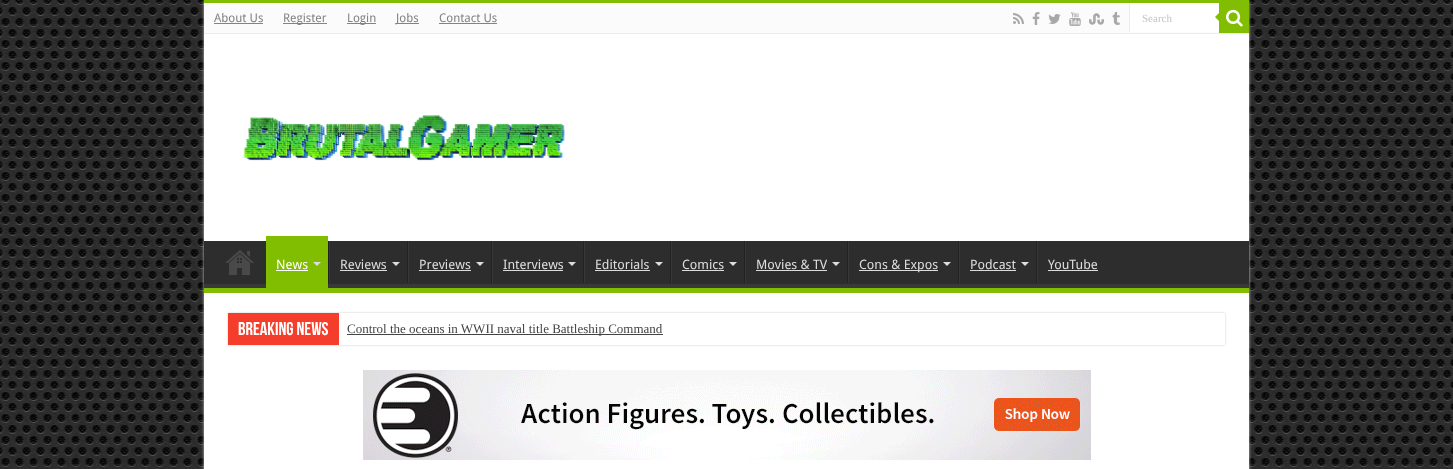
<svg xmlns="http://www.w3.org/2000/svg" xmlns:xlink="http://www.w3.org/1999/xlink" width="1453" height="469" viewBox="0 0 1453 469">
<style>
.cls-1{font:12px Droid Sans;fill:#838383}
.cls-2{font:11px Liberation Serif;fill:#c5c5c5}
.cls-3{font:13px Droid Sans;fill:#ffffff}
.cls-4{font:13px Droid Sans;fill:#dddddd}
.cls-5{font:bold 18.5px Bebas Neue;fill:#ffffff}
.cls-6{font:13px Liberation Serif;fill:#444444}
</style>
<defs>
<clipPath id="clip1"><rect x="204" y="241" width="1045" height="47"/></clipPath>
<clipPath id="clip2"><path d="M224 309H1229V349H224ZM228 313H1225V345H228Z" clip-rule="evenodd"/></clipPath>
</defs>
<rect width="100%" height="100%" fill="#ffffff"/>
<image xlink:href="image0.png" x="0" y="0" width="1453" height="469"/>
<rect fill="#cacaca" filter="blur(1.5px)" x="204" y="0" width="1045" height="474"/>
<rect fill="#ffffff" x="204" y="34" width="1045" height="435"/>
<rect fill="#81bd00" x="204" y="0" width="1045" height="3"/>
<rect fill="#fbfbfb" x="204" y="3" width="1015" height="30"/>
<rect fill="#ececec" x="204" y="33" width="1045" height="1"/>
<rect fill="#838383" x="214" y="23" width="49" height="1"/>
<rect fill="#838383" x="283" y="23" width="44" height="1"/>
<rect fill="#838383" x="347" y="23" width="29" height="1"/>
<rect fill="#838383" x="396" y="23" width="23" height="1"/>
<rect fill="#838383" x="439" y="23" width="58" height="1"/>
<image xlink:href="image1.png" x="1013" y="13" width="11" height="11"/>
<image xlink:href="image2.png" x="1032" y="12" width="8" height="13"/>
<image xlink:href="image3.png" x="1048" y="14" width="13" height="10"/>
<image xlink:href="image4.png" x="1069" y="12" width="12" height="14"/>
<image xlink:href="image5.png" x="1089" y="13" width="15" height="12"/>
<image xlink:href="image6.png" x="1112" y="12" width="8" height="13"/>
<rect fill="#ffffff" x="1130" y="3" width="89" height="29"/>
<rect fill="#ececec" x="1129" y="3" width="1" height="29"/>
<rect fill="#81bd00" x="1219" y="3" width="30" height="30"/>
<image xlink:href="image7.png" x="1226" y="9" width="17" height="18"/>
<path fill="#81bd00" d="M1219 13V21L1215 17Z"/>
<image xlink:href="image8.png" x="243" y="115" width="322" height="46"/>
<rect fill="#2d2d2d" x="204" y="241" width="1045" height="43"/>
<g clip-path="url(#clip1)">
<path fill="#393939" fill-rule="evenodd" d="M105 142H1348V387H105ZM203 235H1249V275C1249 276 1250 284 1248 284H203L202 283V235Z"/>
</g>
<rect fill="#81bd00" x="204" y="288" width="1045" height="5"/>
<image xlink:href="image9.png" x="225" y="250" width="29" height="25"/>
<rect fill="#81bd00" x="266" y="236" width="62" height="52"/>
<rect fill="#ffffff" x="276" y="270" width="32" height="1"/>
<path fill="#dddddd" d="M313 262H321L317 266Z"/>
<rect fill="#222222" x="328" y="241" width="1" height="42"/>
<rect fill="#383838" x="329" y="241" width="1" height="42"/>
<rect fill="#dddddd" x="340" y="270" width="47" height="1"/>
<path fill="#dddddd" d="M392 262H400L396 266Z"/>
<rect fill="#222222" x="407" y="241" width="1" height="42"/>
<rect fill="#383838" x="408" y="241" width="1" height="42"/>
<rect fill="#dddddd" x="419" y="270" width="52" height="1"/>
<path fill="#dddddd" d="M476 262H484L480 266Z"/>
<rect fill="#222222" x="491" y="241" width="1" height="42"/>
<rect fill="#383838" x="492" y="241" width="1" height="42"/>
<rect fill="#dddddd" x="503" y="270" width="60" height="1"/>
<path fill="#dddddd" d="M568 262H576L572 266Z"/>
<rect fill="#222222" x="583" y="241" width="1" height="42"/>
<rect fill="#383838" x="584" y="241" width="1" height="42"/>
<rect fill="#dddddd" x="595" y="270" width="55" height="1"/>
<path fill="#dddddd" d="M655 262H663L659 266Z"/>
<rect fill="#222222" x="670" y="241" width="1" height="42"/>
<rect fill="#383838" x="671" y="241" width="1" height="42"/>
<rect fill="#dddddd" x="682" y="270" width="42" height="1"/>
<path fill="#dddddd" d="M729 262H737L733 266Z"/>
<rect fill="#222222" x="744" y="241" width="1" height="42"/>
<rect fill="#383838" x="745" y="241" width="1" height="42"/>
<rect fill="#dddddd" x="756" y="270" width="71" height="1"/>
<path fill="#dddddd" d="M832 262H840L836 266Z"/>
<rect fill="#222222" x="847" y="241" width="1" height="42"/>
<rect fill="#383838" x="848" y="241" width="1" height="42"/>
<rect fill="#dddddd" x="859" y="270" width="79" height="1"/>
<path fill="#dddddd" d="M943 262H951L947 266Z"/>
<rect fill="#222222" x="958" y="241" width="1" height="42"/>
<rect fill="#383838" x="959" y="241" width="1" height="42"/>
<rect fill="#dddddd" x="970" y="270" width="46" height="1"/>
<path fill="#dddddd" d="M1021 262H1029L1025 266Z"/>
<rect fill="#222222" x="1036" y="241" width="1" height="42"/>
<rect fill="#383838" x="1037" y="241" width="1" height="42"/>
<rect fill="#dddddd" x="1048" y="270" width="50" height="1"/>
<g clip-path="url(#clip2)">
<rect fill="#cacaca" filter="blur(1px)" x="228" y="313" width="997" height="32"/>
</g>
<rect fill="#f43d2a" x="228" y="313" width="111" height="32"/>
<rect fill="#444444" x="347" y="334" width="316" height="1"/>
<image xlink:href="image10.png" x="363" y="370" width="728" height="90"/>
<text class="cls-1" x="214" y="22">About Us</text>
<text class="cls-1" x="283" y="22">Register</text>
<text class="cls-1" x="347" y="22">Login</text>
<text class="cls-1" x="396" y="22">Jobs</text>
<text class="cls-1" x="439" y="22">Contact Us</text>
<text class="cls-2" x="1142" y="22">Search</text>
<text class="cls-3" x="276" y="269">News</text>
<text class="cls-4" x="340" y="269">Reviews</text>
<text class="cls-4" x="419" y="269">Previews</text>
<text class="cls-4" x="503" y="269">Interviews</text>
<text class="cls-4" x="595" y="269">Editorials</text>
<text class="cls-4" x="682" y="269">Comics</text>
<text class="cls-4" x="756" y="269">Movies &amp; TV</text>
<text class="cls-4" x="859" y="269">Cons &amp; Expos</text>
<text class="cls-4" x="970" y="269">Podcast</text>
<text class="cls-4" x="1048" y="269">YouTube</text>
<text class="cls-5" x="238" y="335">Breaking News</text>
<text class="cls-6" x="347" y="333">Control the oceans in WWII naval title Battleship Command</text>
</svg>
